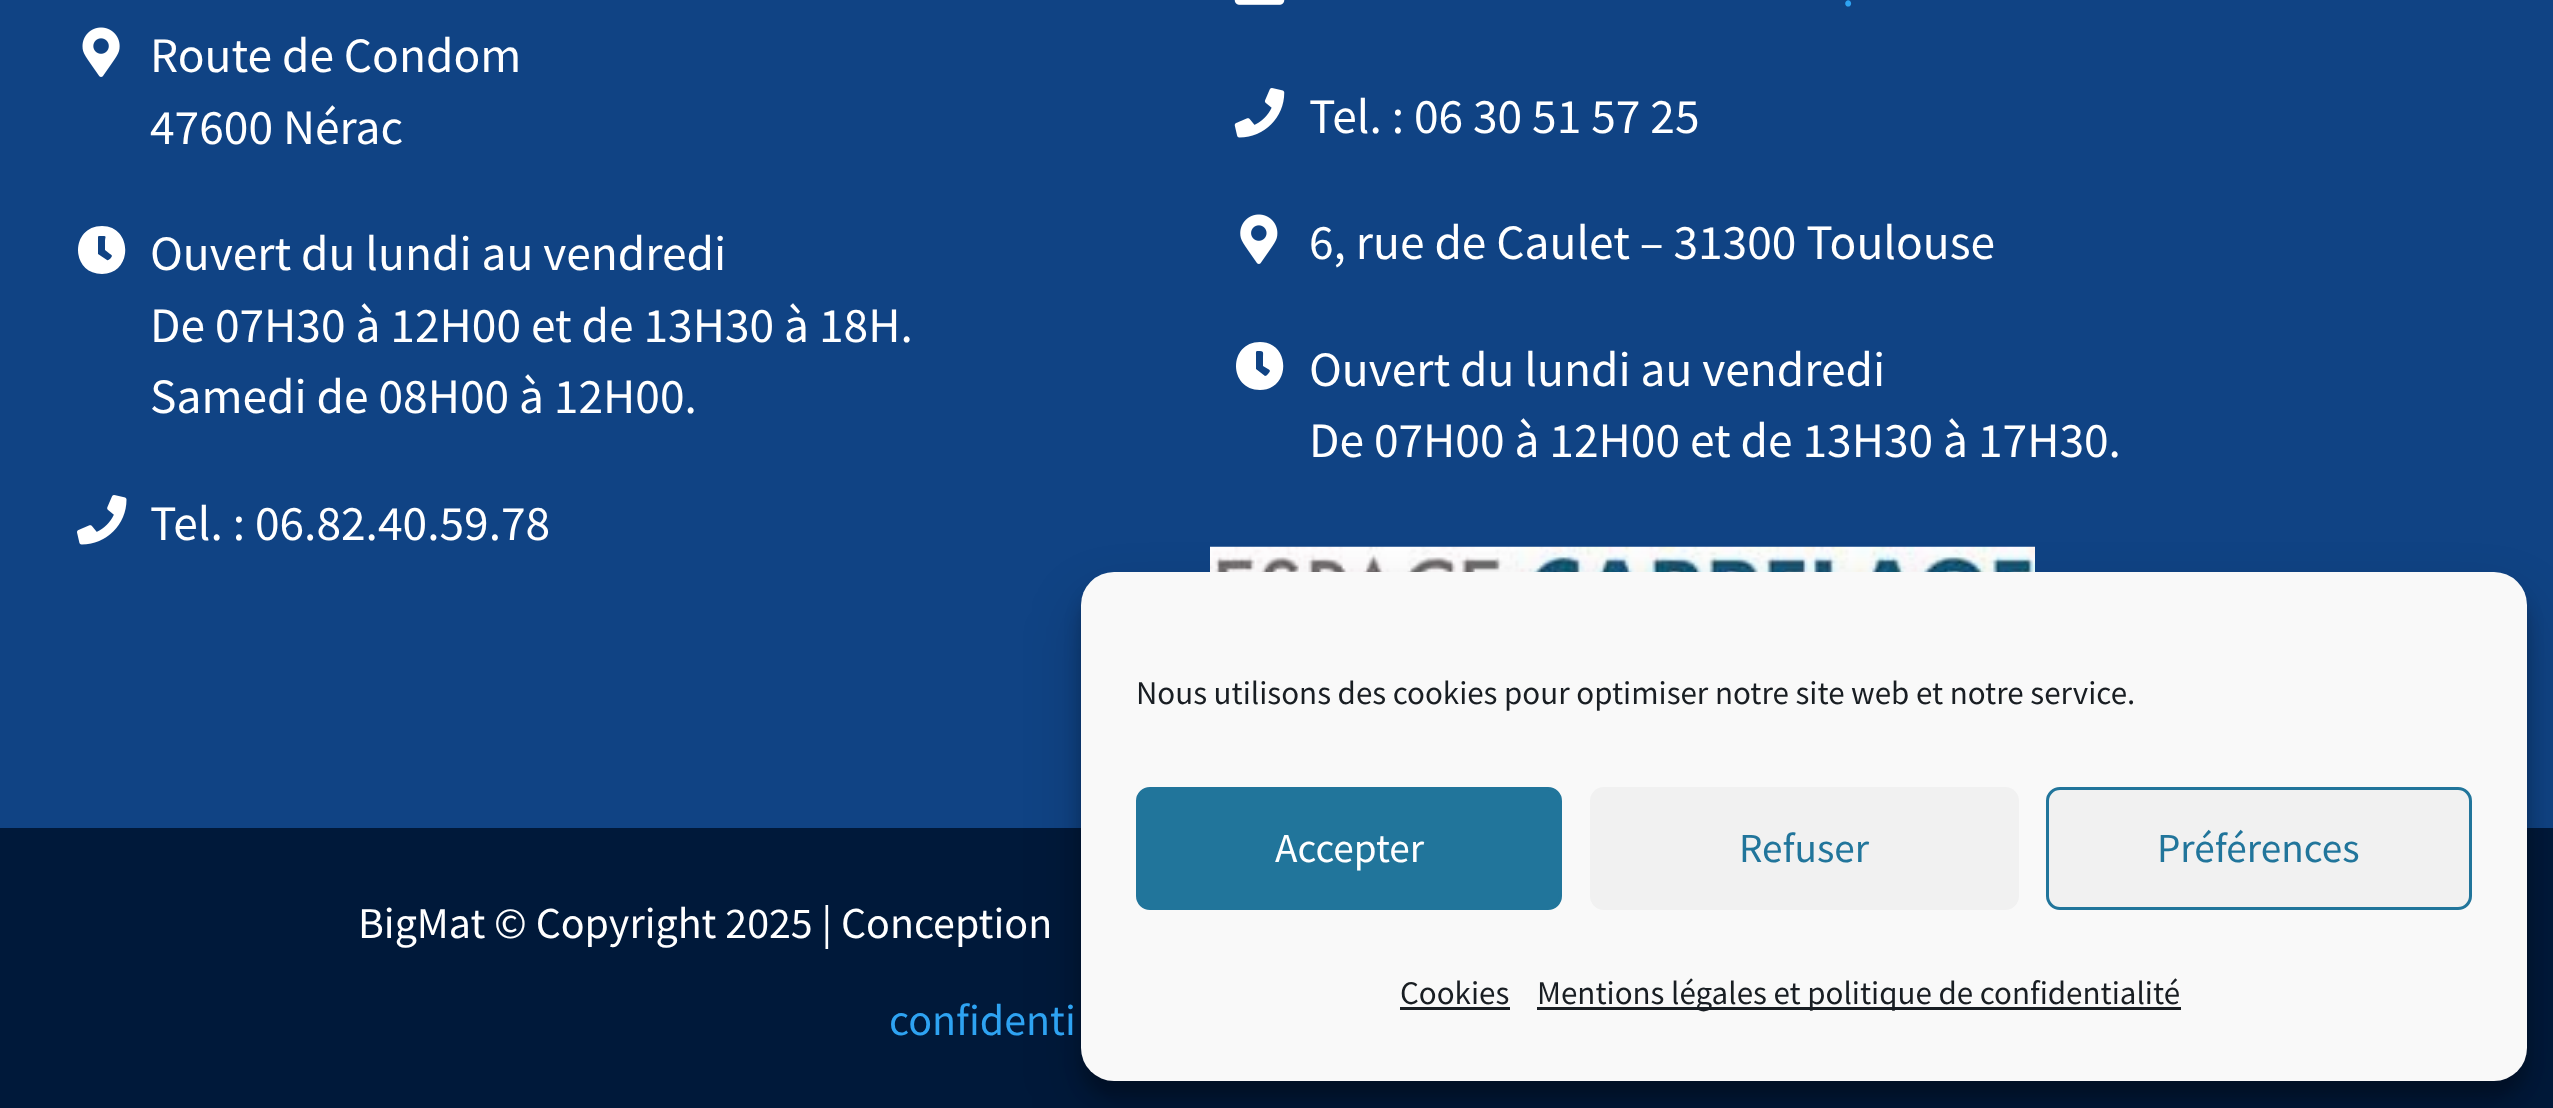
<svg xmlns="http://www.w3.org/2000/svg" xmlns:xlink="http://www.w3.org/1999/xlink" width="2553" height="1108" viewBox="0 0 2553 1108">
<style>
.cls-1{font:49.5px Source Sans Pro;fill:#ffffff}
.cls-2{font:49.5px Source Sans Pro;fill:#2ea3f2}
.cls-3{font:44px Source Sans Pro;fill:#ffffff}
.cls-4{font:44px Source Sans Pro;fill:#2ea3f2}
.cls-5{font:33px Source Sans Pro;fill:#191e23}
.cls-6{font:41.25px Source Sans Pro;fill:#ffffff}
.cls-7{font:41.25px Source Sans Pro;fill:#21759b}
</style>
<rect width="100%" height="100%" fill="#104384"/>
<image xlink:href="image0.png" x="82" y="27" width="38" height="50"/>
<path fill="#ffffff" d="M102 226C70 226 70 274 102 274C133 274 133 226 102 226ZM107 260L98 254V239C98 235 98 236 103 236C107 236 105 237 105 241V250L110 254C113 256 112 256 110 259C109 259 108 261 107 260Z"/>
<image xlink:href="image1.png" x="77" y="495" width="50" height="50"/>
<image xlink:href="image2.png" x="1234" y="0" width="51" height="5"/>
<image xlink:href="image3.png" x="1234" y="88" width="51" height="50"/>
<image xlink:href="image4.png" x="1240" y="214" width="38" height="50"/>
<path fill="#ffffff" d="M1260 342C1228 342 1228 390 1260 390C1291 390 1291 342 1260 342ZM1265 376L1256 369V355C1256 350 1256 351 1260 351C1264 351 1263 353 1263 357V366L1268 369C1271 371 1270 371 1268 374C1267 375 1266 376 1265 376Z"/>
<image xlink:href="image5.png" x="1210" y="546" width="825" height="26"/>
<rect fill="#00193a" x="0" y="828" width="2553" height="280"/>
<rect fill="#000000" fill-opacity="0.23" filter="blur(8px)" x="1081" y="589" width="1446" height="508" rx="33"/>
<rect fill="#000000" fill-opacity="0.19" filter="blur(27.5px)" x="1081" y="600" width="1446" height="508" rx="33"/>
<rect fill="#f9f9f9" x="1081" y="572" width="1446" height="509" rx="33"/>
<rect fill="#21759b" stroke="#21759b" stroke-width="3" x="1137.5" y="788.5" width="423" height="120" rx="12.5"/>
<rect fill="#f1f1f1" x="1590" y="787" width="429" height="123" rx="14"/>
<rect fill="#f1f1f1" stroke="#21759b" stroke-width="3" x="2047.5" y="788.5" width="423" height="120" rx="12.5"/>
<rect fill="#191e23" x="1400" y="1007" width="110" height="3"/>
<rect fill="#191e23" x="1537" y="1007" width="644" height="3"/>
<text class="cls-1"><tspan x="150" y="72">Route de Condom</tspan><tspan x="150" y="144">47600 Nérac</tspan></text>
<text class="cls-1"><tspan x="150" y="270">Ouvert du lundi au vendredi</tspan><tspan x="150" y="342">De 07H30 à 12H00 et de 13H30 à 18H.</tspan><tspan x="150" y="413">Samedi de 08H00 à 12H00.</tspan></text>
<text class="cls-1" x="150" y="540">Tel. : 06.82.40.59.78</text>
<text class="cls-2" x="1842" y="6">.</text>
<text class="cls-1" x="1309" y="133">Tel. : 06 30 51 57 25</text>
<text class="cls-1" x="1309" y="259">6, rue de Caulet – 31300 Toulouse</text>
<text class="cls-1"><tspan x="1309" y="386">Ouvert du lundi au vendredi</tspan><tspan x="1309" y="457">De 07H00 à 12H00 et de 13H30 à 17H30.</tspan></text>
<text class="cls-3" x="358" y="938">BigMat © Copyright 2025 | Conception</text>
<text class="cls-4" x="889" y="1035">confidenti</text>
<text class="cls-5" x="1136" y="704">Nous utilisons des cookies pour optimiser notre site web et notre service.</text>
<text class="cls-6" x="1275" y="862">Accepter</text>
<text class="cls-7" x="1739" y="862">Refuser</text>
<text class="cls-7" x="2157" y="862">Préférences</text>
<text class="cls-5" x="1400" y="1004">Cookies</text>
<text class="cls-5" x="1537" y="1004">Mentions légales et politique de confidentialité</text>
</svg>
